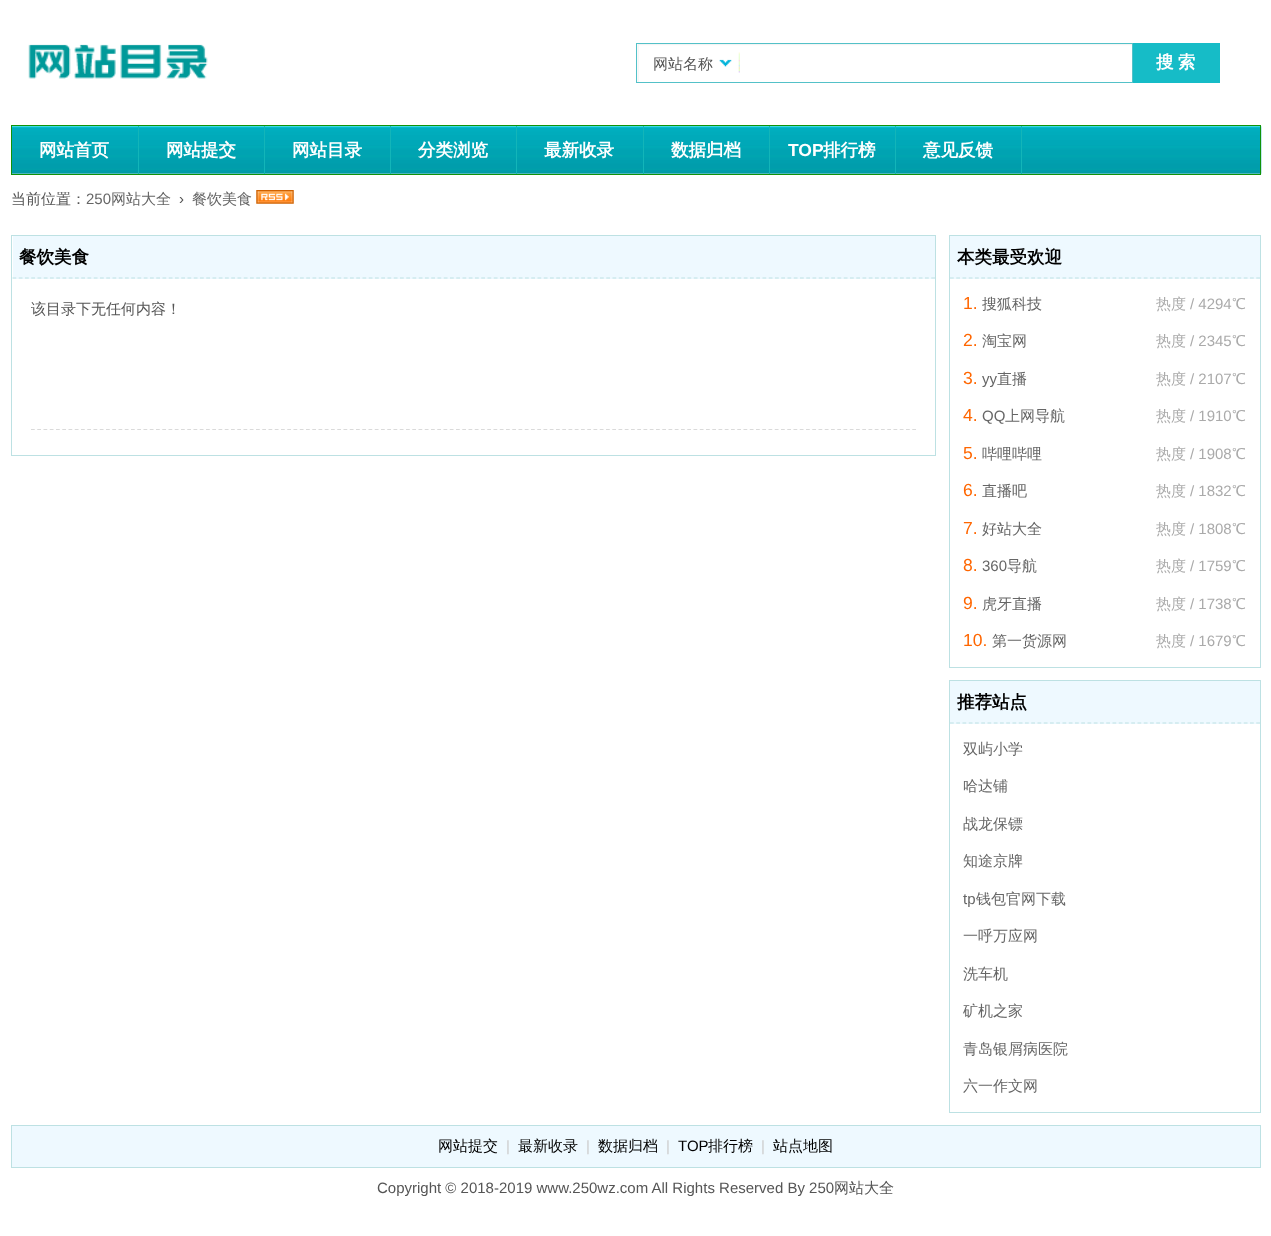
<svg xmlns="http://www.w3.org/2000/svg" xmlns:xlink="http://www.w3.org/1999/xlink" width="1271" height="1236" viewBox="0 0 1271 1236">
<style>
.cls-1{font:bold 17.5px WenQuanYi Zen Hei;fill:#ffffff}
.cls-2{font:500 15px WenQuanYi Zen Hei;fill:#555555}
.cls-3{font:bold 17.5px Liberation Sans;fill:#ffffff}
.cls-4{font:15px Liberation Sans;fill:#666666}
.cls-5{font:500 15px WenQuanYi Zen Hei;fill:#666666}
.cls-6{font:15px Liberation Sans;fill:#555555}
.cls-7{font:bold 17.5px WenQuanYi Zen Hei;fill:#000000}
.cls-8{font:17.5px Liberation Sans;fill:#ff6600}
.cls-9{font:500 15px WenQuanYi Zen Hei;fill:#aaaaaa}
.cls-10{font:15px Liberation Sans;fill:#aaaaaa}
.cls-11{font:500 15px WenQuanYi Zen Hei;fill:#000000}
.cls-12{font:15px Liberation Sans;fill:#cccccc}
.cls-13{font:15px Liberation Sans;fill:#000000}
</style>
<rect width="100%" height="100%" fill="#ffffff"/>
<image xlink:href="image0.png" x="28" y="44" width="180" height="35"/>
<image xlink:href="image1.png" x="637" y="44" width="495" height="38"/>
<rect fill="none" stroke="#53c1c8" x="636.5" y="43.5" width="496" height="39"/>
<rect fill="#16bcc7" x="1133" y="43" width="87" height="40"/>
<image xlink:href="image2.png" x="719" y="52" width="21" height="21"/>
<image xlink:href="image3.png" x="12" y="126" width="1250" height="49"/>
<rect fill="none" stroke="#119209" x="11.5" y="125.5" width="1249" height="49"/>
<rect fill="#13b5b9" x="138" y="126" width="1" height="48"/>
<rect fill="#13b5b9" x="264" y="126" width="1" height="48"/>
<rect fill="#13b5b9" x="390" y="126" width="1" height="48"/>
<rect fill="#13b5b9" x="516" y="126" width="1" height="48"/>
<rect fill="#13b5b9" x="643" y="126" width="1" height="48"/>
<rect fill="#13b5b9" x="769" y="126" width="1" height="48"/>
<rect fill="#13b5b9" x="895" y="126" width="1" height="48"/>
<rect fill="#13b5b9" x="1021" y="126" width="1" height="48"/>
<image xlink:href="image4.png" x="256" y="190" width="38" height="14"/>
<rect fill="none" stroke="#bde1e3" x="11.5" y="235.5" width="924" height="220"/>
<rect fill="#eef9ff" x="13" y="236" width="922" height="43"/>
<path fill="none" stroke="#bde1e3" stroke-width="1.2" stroke-dasharray="3.75 2.5" d="M12.5 278H935"/>
<path fill="none" stroke="#dadada" stroke-width="1.2" stroke-dasharray="3.75 2.5" d="M31 429.5H916"/>
<rect fill="none" stroke="#bde1e3" x="949.5" y="235.5" width="311" height="432"/>
<rect fill="#eef9ff" x="950" y="236" width="310" height="43"/>
<path fill="none" stroke="#bde1e3" stroke-width="1.2" stroke-dasharray="3.75 2.5" d="M950 278H1260"/>
<rect fill="none" stroke="#bde1e3" x="949.5" y="680.5" width="311" height="432"/>
<rect fill="#eef9ff" x="950" y="681" width="310" height="43"/>
<path fill="none" stroke="#bde1e3" stroke-width="1.2" stroke-dasharray="3.75 2.5" d="M950 723H1260"/>
<rect fill="#eef9ff" stroke="#bde1e3" x="11.5" y="1125.5" width="1249" height="42"/>
<text class="cls-1" x="1156" y="68" word-spacing="-1">搜 索</text>
<text class="cls-2" x="653" y="69">网站名称</text>
<text class="cls-1" x="39" y="156">网站首页</text>
<text class="cls-1" x="166" y="156">网站提交</text>
<text class="cls-1" x="292" y="156">网站目录</text>
<text class="cls-1" x="418" y="156">分类浏览</text>
<text class="cls-1" x="544" y="156">最新收录</text>
<text class="cls-1" x="671" y="156">数据归档</text>
<text class="cls-3" x="788" y="156">TOP</text>
<text class="cls-1" x="823" y="156">排行榜</text>
<text class="cls-1" x="923" y="156">意见反馈</text>
<text class="cls-2" x="11" y="204">当前位置：</text>
<text class="cls-4" x="86" y="204">250</text>
<text class="cls-5" x="111" y="204">网站大全</text>
<text class="cls-6" x="179" y="204">›</text>
<text class="cls-5" x="192" y="204">餐饮美食</text>
<text class="cls-7" x="19" y="263">餐饮美食</text>
<text class="cls-2" x="31" y="314">该目录下无任何内容！</text>
<text class="cls-7" x="957" y="263">本类最受欢迎</text>
<text class="cls-8" x="963" y="309">1.</text>
<text class="cls-5" x="982" y="309">搜狐科技</text>
<text class="cls-9" x="1156" y="309">热度</text>
<text class="cls-10" x="1190" y="309">/ 4294</text>
<text class="cls-9" x="1232" y="309">℃</text>
<text class="cls-8" x="963" y="346">2.</text>
<text class="cls-5" x="982" y="346">淘宝网</text>
<text class="cls-9" x="1156" y="346">热度</text>
<text class="cls-10" x="1190" y="346">/ 2345</text>
<text class="cls-9" x="1232" y="346">℃</text>
<text class="cls-8" x="963" y="384">3.</text>
<text class="cls-4" x="982" y="384">yy</text>
<text class="cls-5" x="997" y="384">直播</text>
<text class="cls-9" x="1156" y="384">热度</text>
<text class="cls-10" x="1190" y="384">/ 2107</text>
<text class="cls-9" x="1232" y="384">℃</text>
<text class="cls-8" x="963" y="421">4.</text>
<text class="cls-4" x="982" y="421">QQ</text>
<text class="cls-5" x="1005" y="421">上网导航</text>
<text class="cls-9" x="1156" y="421">热度</text>
<text class="cls-10" x="1190" y="421">/ 1910</text>
<text class="cls-9" x="1232" y="421">℃</text>
<text class="cls-8" x="963" y="459">5.</text>
<text class="cls-5" x="982" y="459">哔哩哔哩</text>
<text class="cls-9" x="1156" y="459">热度</text>
<text class="cls-10" x="1190" y="459">/ 1908</text>
<text class="cls-9" x="1232" y="459">℃</text>
<text class="cls-8" x="963" y="496">6.</text>
<text class="cls-5" x="982" y="496">直播吧</text>
<text class="cls-9" x="1156" y="496">热度</text>
<text class="cls-10" x="1190" y="496">/ 1832</text>
<text class="cls-9" x="1232" y="496">℃</text>
<text class="cls-8" x="963" y="534">7.</text>
<text class="cls-5" x="982" y="534">好站大全</text>
<text class="cls-9" x="1156" y="534">热度</text>
<text class="cls-10" x="1190" y="534">/ 1808</text>
<text class="cls-9" x="1232" y="534">℃</text>
<text class="cls-8" x="963" y="571">8.</text>
<text class="cls-4" x="982" y="571">360</text>
<text class="cls-5" x="1007" y="571">导航</text>
<text class="cls-9" x="1156" y="571">热度</text>
<text class="cls-10" x="1190" y="571">/ 1759</text>
<text class="cls-9" x="1232" y="571">℃</text>
<text class="cls-8" x="963" y="609">9.</text>
<text class="cls-5" x="982" y="609">虎牙直播</text>
<text class="cls-9" x="1156" y="609">热度</text>
<text class="cls-10" x="1190" y="609">/ 1738</text>
<text class="cls-9" x="1232" y="609">℃</text>
<text class="cls-8" x="963" y="646">10.</text>
<text class="cls-5" x="992" y="646">第一货源网</text>
<text class="cls-9" x="1156" y="646">热度</text>
<text class="cls-10" x="1190" y="646">/ 1679</text>
<text class="cls-9" x="1232" y="646">℃</text>
<text class="cls-7" x="957" y="708">推荐站点</text>
<text class="cls-5" x="963" y="754">双屿小学</text>
<text class="cls-5" x="963" y="791">哈达铺</text>
<text class="cls-5" x="963" y="829">战龙保镖</text>
<text class="cls-5" x="963" y="866">知途京牌</text>
<text class="cls-4" x="963" y="904">tp</text>
<text class="cls-5" x="976" y="904">钱包官网下载</text>
<text class="cls-5" x="963" y="941">一呼万应网</text>
<text class="cls-5" x="963" y="979">洗车机</text>
<text class="cls-5" x="963" y="1016">矿机之家</text>
<text class="cls-5" x="963" y="1054">青岛银屑病医院</text>
<text class="cls-5" x="963" y="1091">六一作文网</text>
<text class="cls-11" x="438" y="1151">网站提交</text>
<text class="cls-12" x="506" y="1151">|</text>
<text class="cls-11" x="518" y="1151">最新收录</text>
<text class="cls-12" x="586" y="1151">|</text>
<text class="cls-11" x="598" y="1151">数据归档</text>
<text class="cls-12" x="666" y="1151">|</text>
<text class="cls-13" x="678" y="1151">TOP</text>
<text class="cls-11" x="708" y="1151">排行榜</text>
<text class="cls-12" x="761" y="1151">|</text>
<text class="cls-11" x="773" y="1151">站点地图</text>
<text class="cls-6" x="377" y="1193">Copyright © 2018-2019 www.250wz.com All Rights Reserved By 250</text>
<text class="cls-2" x="834" y="1193">网站大全</text>
</svg>
